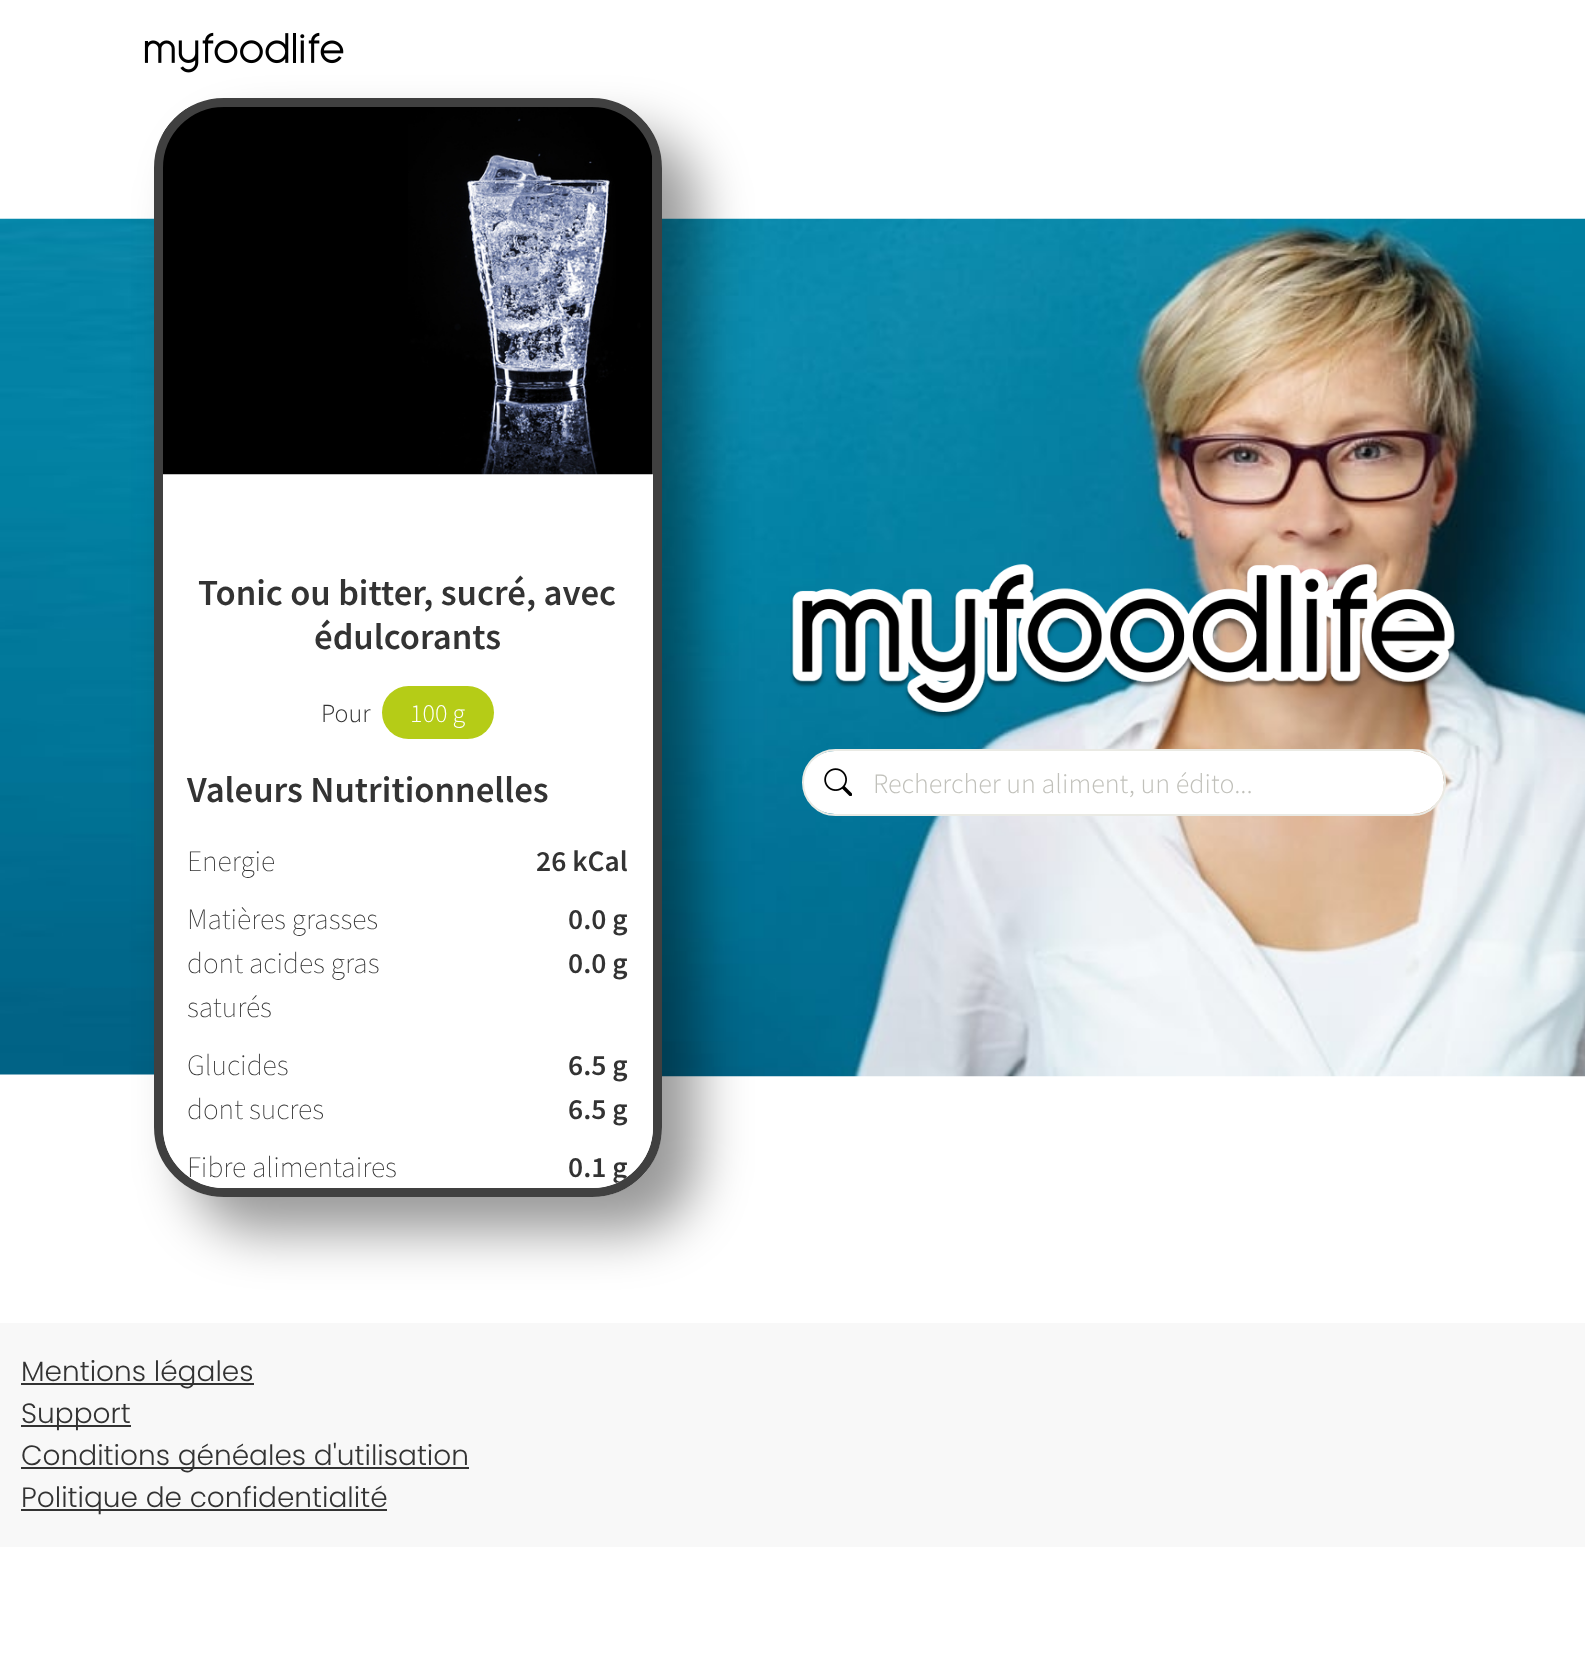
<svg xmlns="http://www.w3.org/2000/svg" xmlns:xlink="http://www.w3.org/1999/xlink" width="1585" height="1672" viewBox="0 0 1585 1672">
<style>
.cls-1{font:600 36.75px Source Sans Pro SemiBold;fill:#333333}
.cls-2{font:300 26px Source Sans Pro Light;fill:#333333}
.cls-3{font:300 26px Source Sans Pro Light;fill:#ffffff}
.cls-4{font:200 29.5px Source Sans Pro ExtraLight;fill:#333333}
.cls-5{font:600 29.5px Source Sans Pro SemiBold;fill:#333333}
.cls-6{font:300 28px Source Sans Pro Light;fill:#c0c0ba}
.cls-7{font:300 28px Poppins;fill:#333333}
</style>
<defs>
<clipPath id="clip1"><rect x="163" y="107" width="490" height="1081" rx="61"/></clipPath>
</defs>
<rect width="100%" height="100%" fill="#ffffff"/>
<image xlink:href="image1.png" x="0" y="218" width="154" height="857"/>
<image xlink:href="image3.png" x="662" y="218" width="923" height="859"/>
<rect fill="#000000" fill-opacity="0.4" filter="blur(26px)" x="189" y="133" width="508" height="1099" rx="70"/>
<image xlink:href="image0.png" x="144" y="32" width="200" height="41"/>
<rect fill="#ffffff" x="154" y="98" width="508" height="1099" rx="70"/>
<image xlink:href="image2.png" x="162" y="106" width="491" height="369"/>
<rect fill="none" stroke="#404040" stroke-width="9" x="158.5" y="102.5" width="499" height="1090" rx="65.5"/>
<path fill="#ffffff" d="M191 515H625C640.5 515 653 527.5 653 543V1127C653 1160.5 625.5 1188 592 1188H224C190.5 1188 163 1160.5 163 1127V543C163 527.5 175.5 515 191 515Z"/>
<rect fill="#b5cc17" x="382" y="686" width="112" height="53" rx="26.5"/>
<image xlink:href="image4.png" x="790" y="564" width="666" height="155"/>
<rect fill="#ffffff" x="803" y="751" width="641" height="63" rx="31.5"/>
<image xlink:href="image5.png" x="824" y="768" width="28" height="28"/>
<rect fill="none" stroke="#eaeae4" stroke-width="2" x="803" y="750" width="642" height="65" rx="32.5"/>
<rect fill="#f8f8f8" x="0" y="1323" width="1585" height="224"/>
<rect fill="#333333" x="21" y="1383" width="233" height="2"/>
<rect fill="#333333" x="21" y="1425" width="110" height="2"/>
<rect fill="#333333" x="21" y="1467" width="448" height="2"/>
<rect fill="#333333" x="21" y="1509" width="366" height="2"/>
<text class="cls-1" x="198" y="605">Tonic ou bitter, sucré, avec</text>
<text class="cls-1" x="314" y="649">édulcorants</text>
<text class="cls-2" x="321" y="722">Pour</text>
<text class="cls-3" x="410" y="722">100 g</text>
<text class="cls-1" x="187" y="802">Valeurs Nutritionnelles</text>
<text class="cls-4" x="187" y="871">Energie</text>
<text class="cls-5" x="536" y="871">26 kCal</text>
<text class="cls-4" x="187" y="929">Matières grasses</text>
<text class="cls-5" x="568" y="929">0.0 g</text>
<text class="cls-4"><tspan x="187" y="973">dont acides gras</tspan><tspan x="187" y="1017">saturés</tspan></text>
<text class="cls-5" x="568" y="973">0.0 g</text>
<text class="cls-4" x="187" y="1075">Glucides</text>
<text class="cls-5" x="568" y="1075">6.5 g</text>
<text class="cls-4" x="187" y="1119">dont sucres</text>
<text class="cls-5" x="568" y="1119">6.5 g</text>
<text class="cls-4" x="187" y="1177">Fibre alimentaires</text>
<g clip-path="url(#clip1)">
<text class="cls-5" x="568" y="1177">0.1 g</text>
</g>
<text class="cls-6" x="873" y="793">Rechercher un aliment, un édito...</text>
<text class="cls-7"><tspan x="21" y="1381">Mentions légales</tspan><tspan x="21" y="1423">Support</tspan><tspan x="21" y="1465">Conditions généales d'utilisation</tspan><tspan x="21" y="1507">Politique de confidentialité</tspan></text>
</svg>
